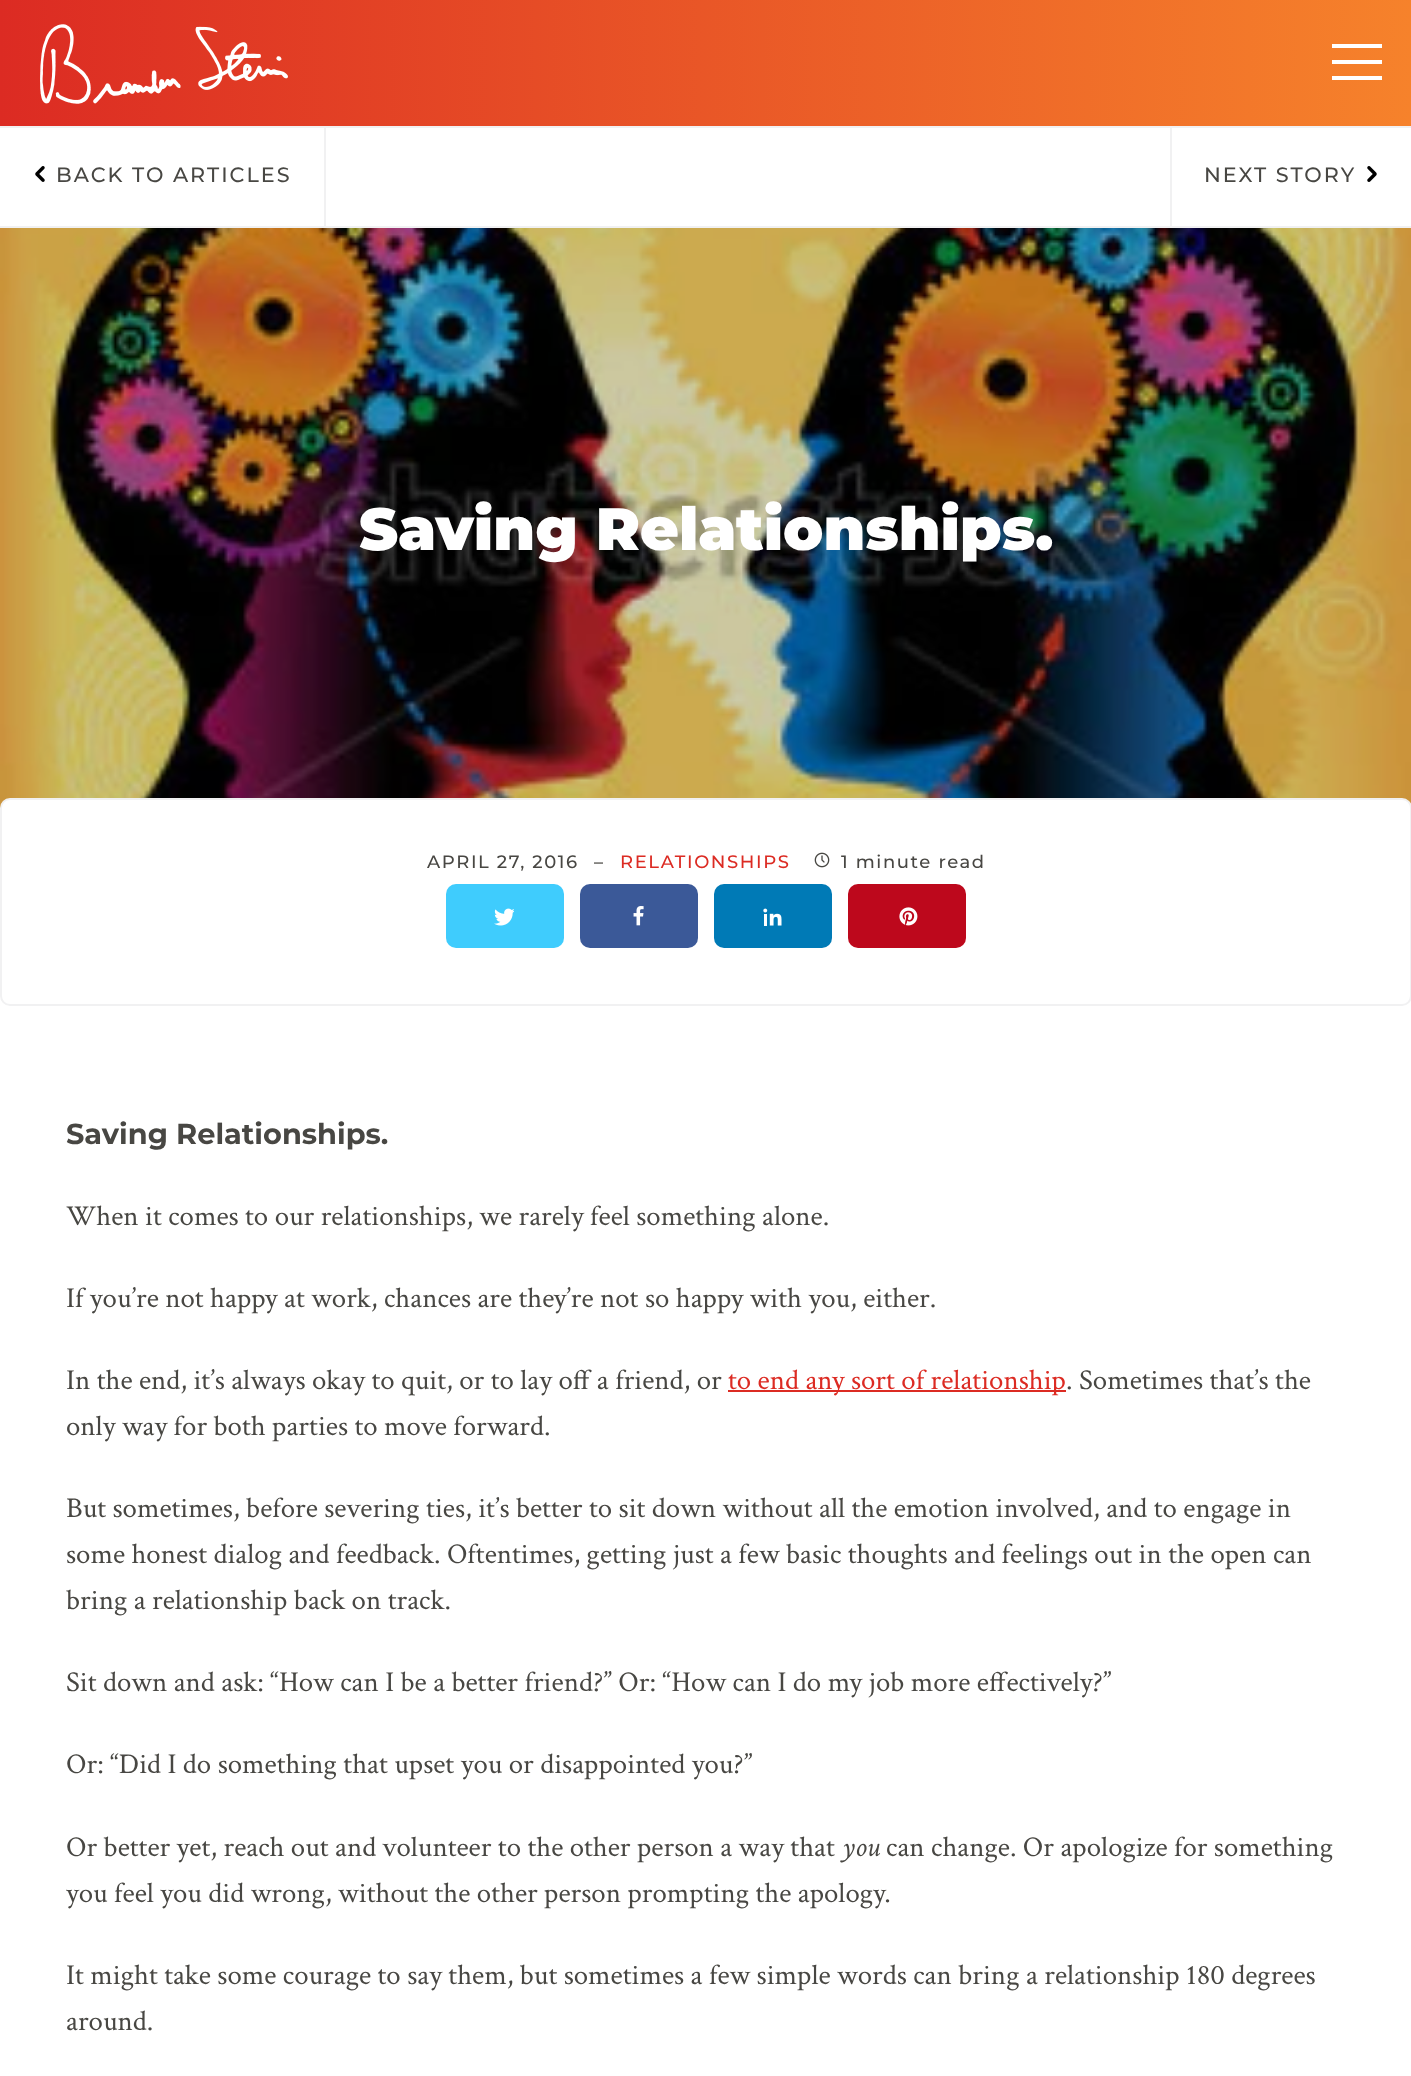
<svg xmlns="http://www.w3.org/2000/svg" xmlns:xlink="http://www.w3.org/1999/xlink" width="1411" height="2076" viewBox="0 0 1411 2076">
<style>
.cls-1{font:500 20.75px Montserrat;letter-spacing:2px;fill:#484743}
.cls-2{font:900 59.5px Montserrat;fill:#ffffff}
.cls-3{font:500 18px Montserrat;letter-spacing:1.6px;fill:#484743}
.cls-4{font:500 18px Montserrat;letter-spacing:1.6px;fill:#dc2b23}
.cls-5{font:bold 28.8px Montserrat;fill:#484743}
.cls-6{font:28.8px Crimson Text;fill:#484743}
.cls-7{font:28.8px Crimson Text;fill:#dc2b23}
.cls-8{font:italic 28.8px Crimson Text;fill:#484743}
</style>
<defs>
<linearGradient id="g1" gradientUnits="userSpaceOnUse" x1="0" y1="113" x2="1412" y2="113"><stop offset="0" stop-color="#dc2b23"/><stop offset="1" stop-color="#f6822b"/></linearGradient>
</defs>
<rect width="100%" height="100%" fill="#ffffff"/>
<rect fill="url(#g1)" x="0" y="0" width="1411" height="126"/>
<rect fill="#f1f1f2" x="0" y="226" width="1411" height="2"/>
<image xlink:href="image0.png" x="40" y="24" width="248" height="80"/>
<rect fill="#ffffff" x="1332" y="44" width="50" height="4"/>
<rect fill="#ffffff" x="1332" y="60" width="50" height="4"/>
<rect fill="#ffffff" x="1332" y="76" width="50" height="4"/>
<rect fill="#f1f1f2" x="0" y="126" width="1411" height="2"/>
<rect fill="#f1f1f2" x="324" y="128" width="2" height="98"/>
<image xlink:href="image1.png" x="35" y="166" width="10" height="16"/>
<rect fill="#f1f1f2" x="1170" y="128" width="2" height="98"/>
<image xlink:href="image2.png" x="1367" y="166" width="10" height="16"/>
<image xlink:href="image3.png" x="0" y="228" width="1411" height="580"/>
<rect fill="#ffffff" stroke="#f1f1f2" stroke-width="2" x="1" y="799" width="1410" height="206" rx="9"/>
<image xlink:href="image4.png" x="814" y="852" width="16" height="16"/>
<rect fill="#3fccfd" x="446" y="884" width="118" height="64" rx="10"/>
<image xlink:href="image5.png" x="494" y="908" width="20" height="18"/>
<rect fill="#3b5998" x="580" y="884" width="118" height="64" rx="10"/>
<image xlink:href="image6.png" x="633" y="906" width="11" height="20"/>
<rect fill="#007ab6" x="714" y="884" width="118" height="64" rx="10"/>
<image xlink:href="image7.png" x="763" y="908" width="19" height="18"/>
<rect fill="#bd081c" x="848" y="884" width="118" height="64" rx="10"/>
<image xlink:href="image8.png" x="899" y="907" width="19" height="19"/>
<rect fill="#dc2b23" x="728" y="1390" width="338" height="2"/>
<text class="cls-1" x="56" y="182">BACK TO ARTICLES</text>
<text class="cls-1" x="1204" y="182">NEXT STORY</text>
<text class="cls-2" x="359" y="550">Saving Relationships.</text>
<text class="cls-3" x="427" y="868">APRIL 27, 2016</text>
<text class="cls-3" x="594" y="868">–</text>
<text class="cls-4" x="620" y="868">RELATIONSHIPS</text>
<text class="cls-3" x="841" y="868">1 minute read</text>
<text class="cls-5" x="66" y="1144">Saving Relationships.</text>
<text class="cls-6" x="66" y="1225">When it comes to our relationships, we rarely feel something alone.</text>
<text class="cls-6" x="66" y="1307">If you’re not happy at work, chances are they’re not so happy with you, either.</text>
<text class="cls-6" x="66" y="1389">In the end, it’s always okay to quit, or to lay off a friend, or</text>
<text class="cls-7" x="728" y="1389">to end any sort of relationship</text>
<text class="cls-6" x="1066" y="1389">. Sometimes that’s the</text>
<text class="cls-6" x="66" y="1435">only way for both parties to move forward.</text>
<text class="cls-6"><tspan x="66" y="1517">But sometimes, before severing ties, it’s better to sit down without all the emotion involved, and to engage in</tspan><tspan x="66" y="1563">some honest dialog and feedback. Oftentimes, getting just a few basic thoughts and feelings out in the open can</tspan><tspan x="66" y="1609">bring a relationship back on track.</tspan></text>
<text class="cls-6" x="66" y="1691">Sit down and ask: “How can I be a better friend?” Or: “How can I do my job more effectively?”</text>
<text class="cls-6" x="66" y="1773">Or: “Did I do something that upset you or disappointed you?”</text>
<text class="cls-6" x="66" y="1856">Or better yet, reach out and volunteer to the other person a way that</text>
<text class="cls-8" x="841" y="1856">you</text>
<text class="cls-6" x="886" y="1856">can change. Or apologize for something</text>
<text class="cls-6" x="66" y="1902">you feel you did wrong, without the other person prompting the apology.</text>
<text class="cls-6"><tspan x="66" y="1984">It might take some courage to say them, but sometimes a few simple words can bring a relationship 180 degrees</tspan><tspan x="66" y="2030">around.</tspan></text>
</svg>
